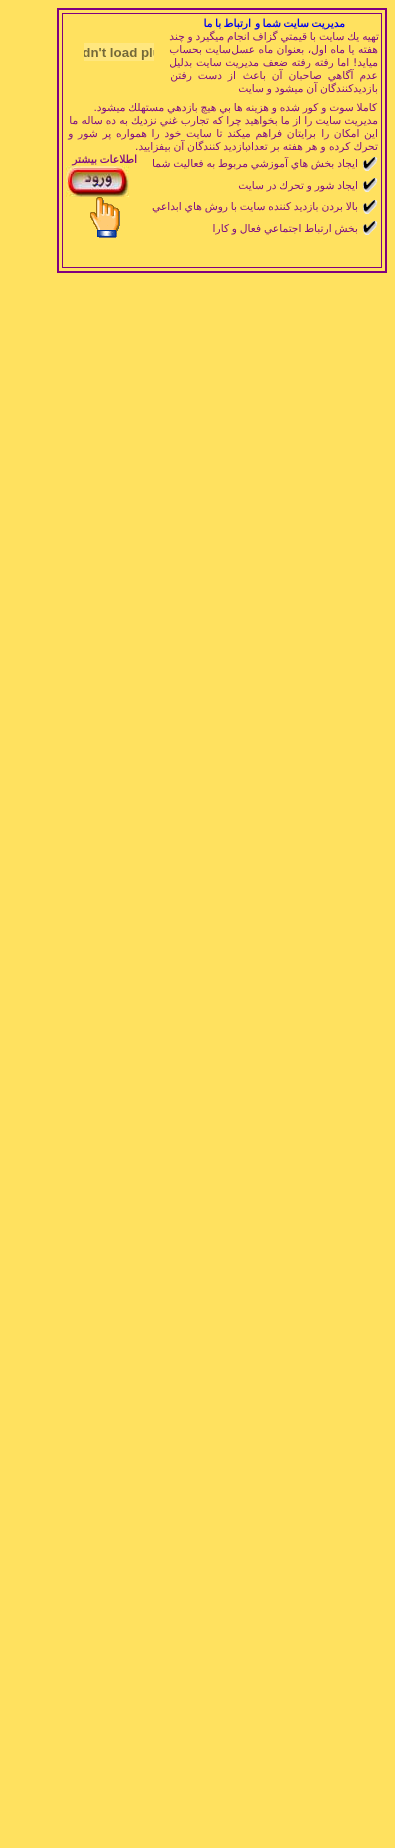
<svg xmlns="http://www.w3.org/2000/svg" xmlns:xlink="http://www.w3.org/1999/xlink" width="395" height="1848" viewBox="0 0 395 1848">
<style>
.cls-1{font:bold 10.7px DejaVu Sans;direction:rtl;fill:#0000ee}
.cls-2{font:10.7px DejaVu Sans;direction:rtl;fill:#800f83}
.cls-3{font:bold 10.7px DejaVu Sans;direction:rtl;fill:#800f83}
.cls-4{font:10.7px Liberation Serif;fill:#0000ee}
</style>
<rect width="100%" height="100%" fill="#ffe15f"/>
<rect fill="none" stroke="#800080" stroke-width="2" x="58" y="9" width="328" height="263"/>
<rect fill="none" stroke="#800080" x="62.5" y="13.5" width="319" height="254"/>
<image xlink:href="image0.png" x="84" y="43" width="70" height="18"/>
<image xlink:href="image1.png" x="363" y="157" width="15" height="14"/>
<image xlink:href="image2.png" x="66" y="166" width="63" height="31"/>
<image xlink:href="image3.png" x="90" y="197" width="30" height="41"/>
<image xlink:href="image1.png" x="363" y="178" width="15" height="14"/>
<image xlink:href="image1.png" x="363" y="200" width="15" height="14"/>
<image xlink:href="image1.png" x="363" y="221" width="15" height="14"/>
<text class="cls-1" x="345" y="27" word-spacing="-1">مديريت سايت شما و</text>
<text class="cls-1" x="251" y="27" word-spacing="-1">ارتباط با ما</text>
<text class="cls-2" x="379" y="40" word-spacing="-0.6">تهيه يك سايت با قيمتي گزاف انجام ميگيرد و چند</text>
<text class="cls-2" x="378" y="53">هفته يا ماه اول، بعنوان ماه عسل</text>
<text class="cls-2" x="231" y="53">سايت بحساب</text>
<text class="cls-2"><tspan x="378" y="66" word-spacing="0.25">ميايد! اما رفته رفته ضعف مديريت سايت بدليل</tspan><tspan x="378" y="79" word-spacing="2.5">عدم آگاهي صاحبان آن باعث</tspan></text>
<text class="cls-2" x="236" y="79" word-spacing="2.5">از دست رفتن</text>
<text class="cls-2" x="378" y="92" word-spacing="-0.6">بازديدكنندگان آن ميشود و سايت</text>
<text class="cls-2" x="377" y="111" word-spacing="-0.6">كاملا سوت و كور شده و هزينه ها بي هيچ بازدهي مستهلك ميشود.</text>
<text class="cls-2"><tspan x="378" y="124" word-spacing="-0.25">مديريت سايت را از ما بخواهيد چرا كه تجارب غني نزديك به ده ساله ما</tspan><tspan x="378" y="137" word-spacing="1">اين امكان را</tspan></text>
<text class="cls-2" x="316" y="137" word-spacing="1.25">برايتان فراهم ميكند تا سايت خود را همواره پر شور و</text>
<text class="cls-2" x="378" y="150" word-spacing="-0.25">تحرك كرده و هر هفته بر تعداد</text>
<text class="cls-2" x="248" y="150" word-spacing="-0.6">بازديد كنندگان آن بيفزاييد.</text>
<text class="cls-2" x="358" y="167" word-spacing="-0.6">ايجاد بخش هاي آموزشي مربوط به فعاليت شما</text>
<text class="cls-3" x="137" y="163" word-spacing="-1">اطلاعات بيشتر</text>
<text class="cls-4" x="96" y="185">.</text>
<text class="cls-2"><tspan x="358" y="189" word-spacing="-0.6">ايجاد شور و تحرك در سايت</tspan><tspan x="358" y="210" word-spacing="-0.6">بالا بردن بازديد كننده سايت با روش هاي ابداعي</tspan></text>
<text class="cls-2" x="358" y="232" word-spacing="-0.6">بخش ارتباط اجتماعي فعال و كارا</text>
</svg>
